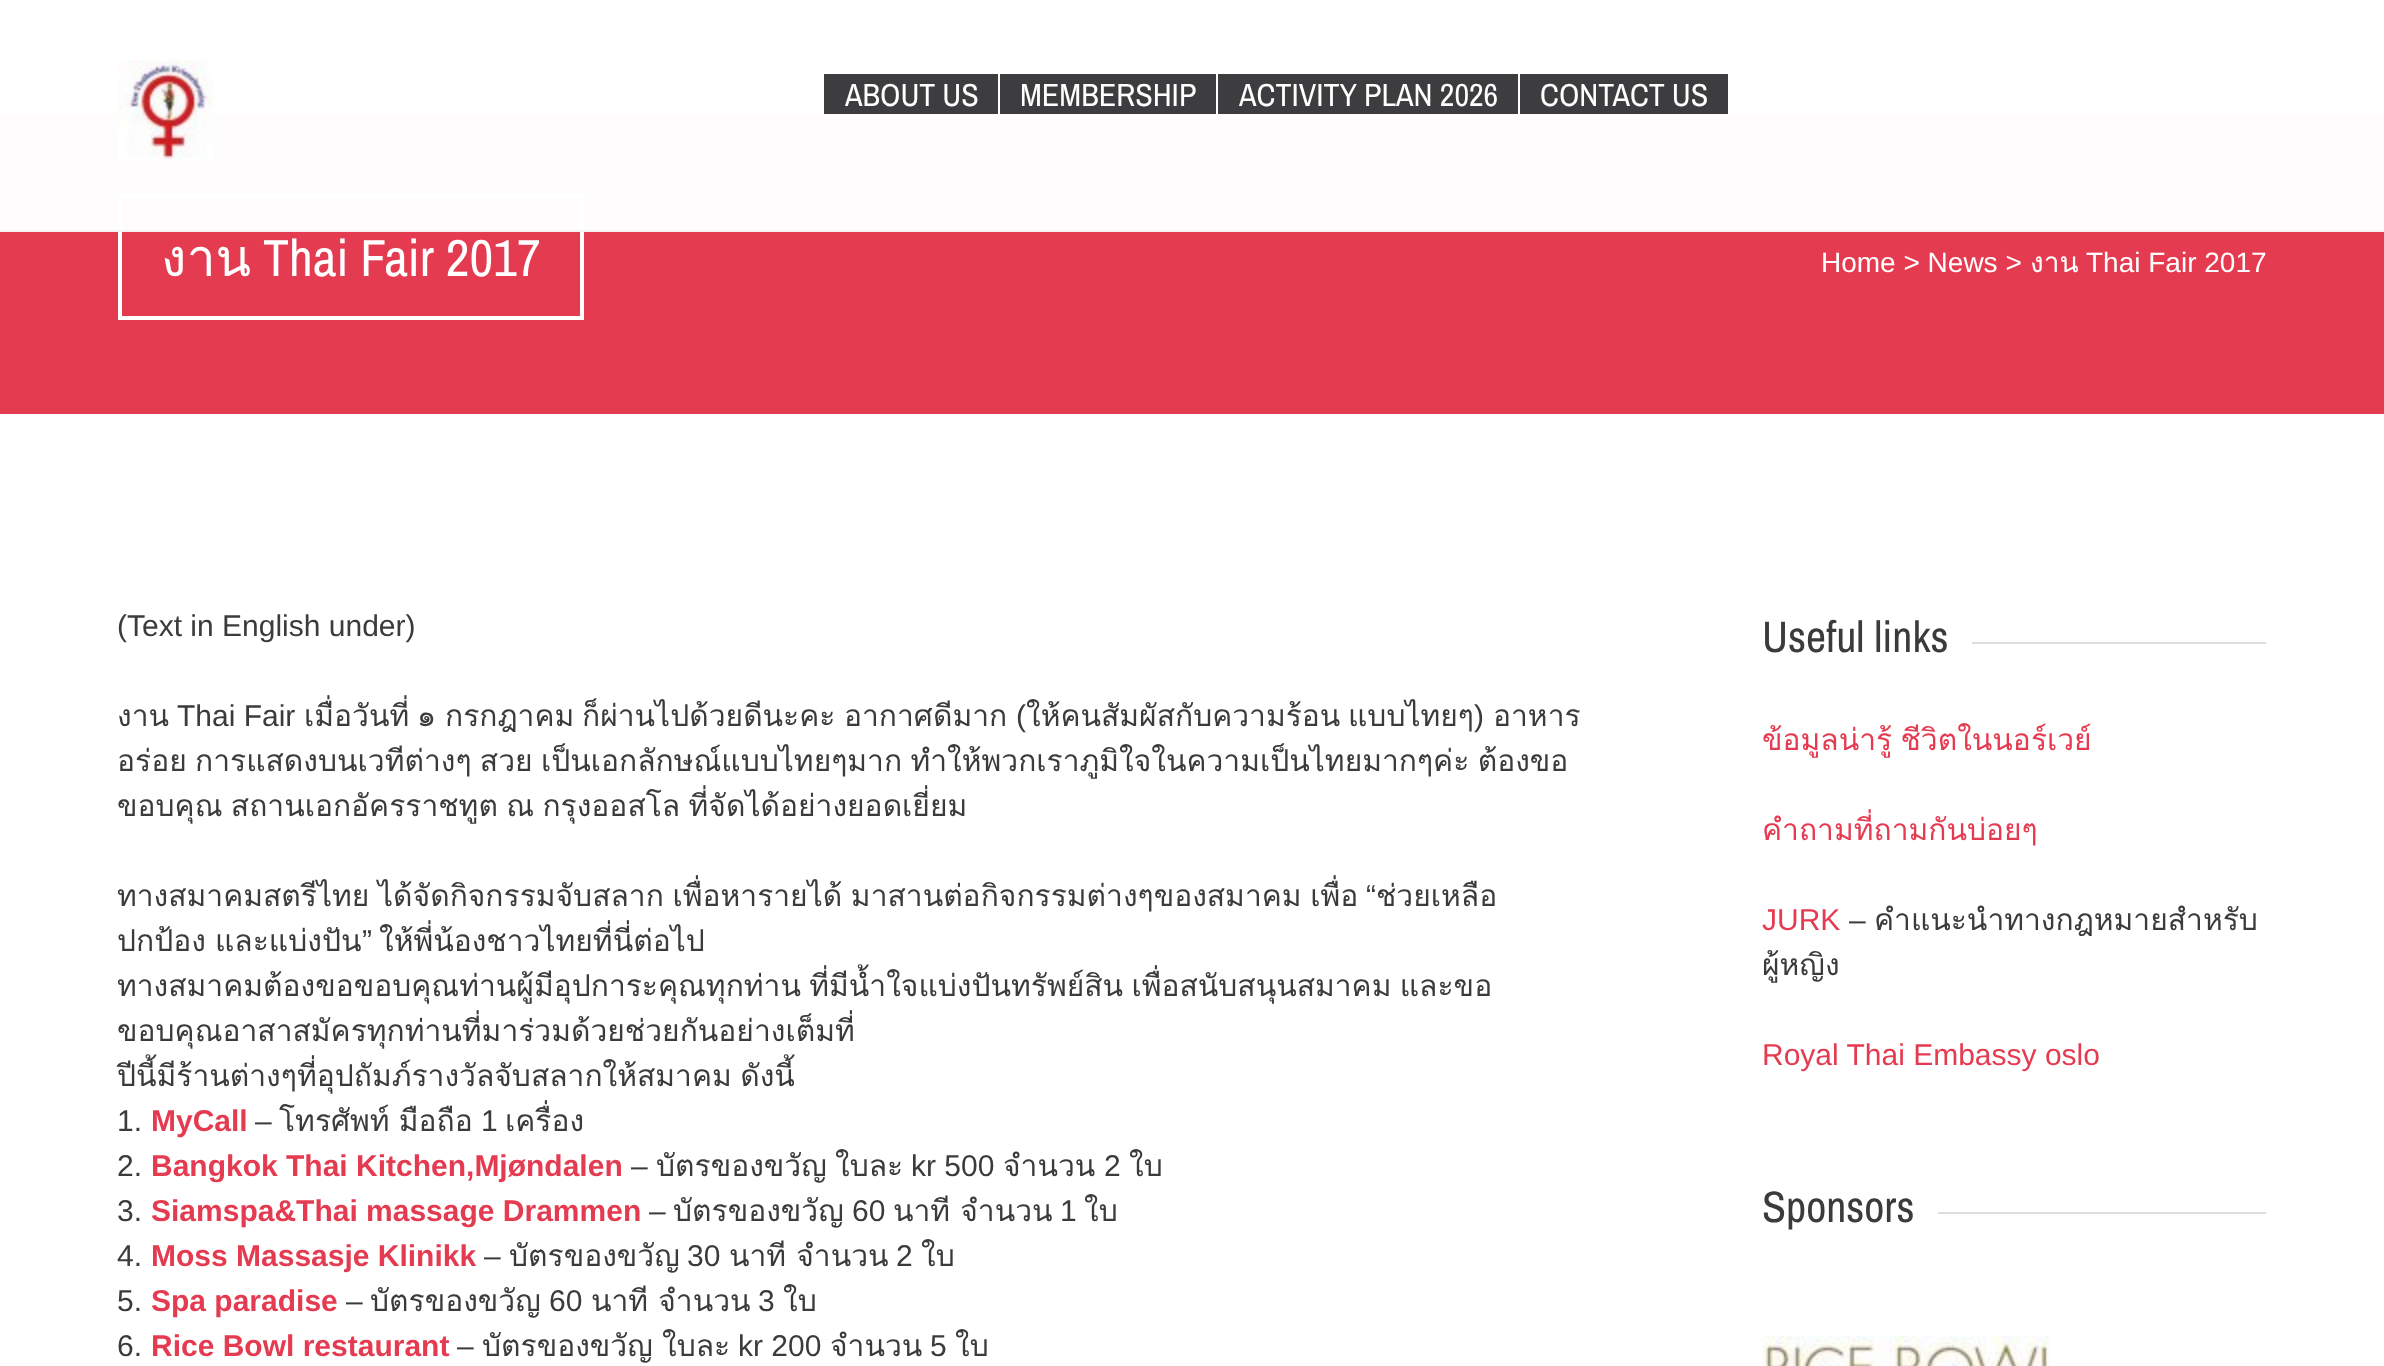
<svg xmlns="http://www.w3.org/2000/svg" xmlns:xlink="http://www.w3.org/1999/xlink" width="2384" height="1366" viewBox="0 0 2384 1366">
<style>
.cls-1{font:32px Archivo Narrow;fill:#ffffff}
.cls-2{font:52px Loma;fill:#ffffff}
.cls-3{font:52px Archivo Narrow;fill:#ffffff}
.cls-4{font:28px Arimo;fill:#ffffff}
.cls-5{font:28px Loma;fill:#ffffff}
.cls-6{font:30px Arimo;fill:#3b3b3d}
.cls-7{font:30px Loma;fill:#3b3b3d}
.cls-8{font:bold 30px Arimo;fill:#e53b51}
.cls-9{font:44px Archivo Narrow;fill:#3b3b3d}
.cls-10{font:30px Loma;fill:#e53b51}
.cls-11{font:30px Arimo;fill:#e53b51}
</style>
<rect width="100%" height="100%" fill="#ffffff"/>
<rect fill="#e53b51" x="0" y="114" width="2384" height="300"/>
<rect fill="none" stroke="#ffffff" stroke-width="4" x="120" y="196" width="462" height="122"/>
<rect fill="#ffffff" fill-opacity="0.99" x="0" y="114" width="2384" height="116"/>
<rect fill="#f3f3f3" x="0" y="230" width="2384" height="2"/>
<image xlink:href="image0.png" x="118" y="60" width="96" height="100"/>
<rect fill="#3d3d3f" x="824" y="74" width="174" height="40"/>
<rect fill="#3d3d3f" x="1000" y="74" width="216" height="40"/>
<rect fill="#3d3d3f" x="1218" y="74" width="300" height="40"/>
<rect fill="#3d3d3f" x="1520" y="74" width="208" height="40"/>
<rect fill="#dddddd" x="1972" y="642" width="294" height="2"/>
<rect fill="#dddddd" x="1938" y="1212" width="328" height="2"/>
<image xlink:href="image1.png" x="1762" y="1336" width="288" height="30"/>
<text class="cls-1" x="845" y="106">ABOUT US</text>
<text class="cls-1" x="1020" y="106">MEMBERSHIP</text>
<text class="cls-1" x="1239" y="106">ACTIVITY PLAN 2026</text>
<text class="cls-1" x="1540" y="106">CONTACT US</text>
<text class="cls-2" x="161" y="276">งาน</text>
<text class="cls-3" x="263" y="276">Thai Fair 2017</text>
<text class="cls-4" x="1821" y="272">Home &gt; News &gt;</text>
<text class="cls-5" x="2030" y="272">งาน</text>
<text class="cls-4" x="2086" y="272">Thai Fair 2017</text>
<text class="cls-6" x="117" y="636">(Text in English under)</text>
<text class="cls-7" x="117" y="726">งาน</text>
<text class="cls-6" x="177" y="726">Thai Fair</text>
<text class="cls-7" x="304" y="726">เมื่อวันที่</text>
<text class="cls-7" x="417" y="726">๑</text>
<text class="cls-7" x="445" y="726">กรกฎาคม</text>
<text class="cls-7" x="582" y="726">ก็ผ่านไปด้วยดีนะคะ</text>
<text class="cls-7" x="844" y="726">อากาศดีมาก</text>
<text class="cls-6" x="1016" y="726">(</text>
<text class="cls-7" x="1026" y="726">ให้คนสัมผัสกับความร้อน</text>
<text class="cls-7" x="1348" y="726">แบบไทยๆ</text>
<text class="cls-6" x="1474" y="726">)</text>
<text class="cls-7" x="1493" y="726">อาหาร</text>
<text class="cls-7"><tspan x="117" y="771" word-spacing="-1.75">อร่อย การแสดงบนเวทีต่างๆ สวย เป็นเอกลักษณ์แบบไทยๆมาก ทำให้พวกเราภูมิใจในความเป็นไทยมากๆค่ะ ต้องขอ</tspan><tspan x="117" y="816" word-spacing="-1.75">ขอบคุณ สถานเอกอัครราชทูต ณ กรุงออสโล ที่จัดได้อย่างยอดเยี่ยม</tspan></text>
<text class="cls-7" x="117" y="906" word-spacing="-1.5">ทางสมาคมสตรีไทย ได้จัดกิจกรรมจับสลาก เพื่อหารายได้ มาสานต่อกิจกรรมต่างๆของสมาคม เพื่อ</text>
<text class="cls-6" x="1366" y="906">“</text>
<text class="cls-7" x="1376" y="906">ช่วยเหลือ</text>
<text class="cls-7" x="117" y="951" word-spacing="-1">ปกป้อง และแบ่งปัน</text>
<text class="cls-6" x="362" y="951">”</text>
<text class="cls-7" x="379" y="951">ให้พี่น้องชาวไทยที่นี่ต่อไป</text>
<text class="cls-7"><tspan x="117" y="996" word-spacing="-1.75">ทางสมาคมต้องขอขอบคุณท่านผู้มีอุปการะคุณทุกท่าน ที่มีน้ำใจแบ่งปันทรัพย์สิน เพื่อสนับสนุนสมาคม และขอ</tspan><tspan x="117" y="1041">ขอบคุณอาสาสมัครทุกท่านที่มาร่วมด้วยช่วยกันอย่างเต็มที่</tspan><tspan x="117" y="1086" word-spacing="-1.75">ปีนี้มีร้านต่างๆที่อุปถัมภ์รางวัลจับสลากให้สมาคม ดังนี้</tspan></text>
<text class="cls-6" x="117" y="1131">1.</text>
<text class="cls-8" x="151" y="1131">MyCall</text>
<text class="cls-6" x="255" y="1131">–</text>
<text class="cls-7" x="279" y="1131" word-spacing="-1">โทรศัพท์ มือถือ</text>
<text class="cls-6" x="481" y="1131">1</text>
<text class="cls-7" x="505" y="1131">เครื่อง</text>
<text class="cls-6" x="117" y="1176">2.</text>
<text class="cls-8" x="151" y="1176">Bangkok Thai Kitchen,Mjøndalen</text>
<text class="cls-6" x="631" y="1176">–</text>
<text class="cls-7" x="656" y="1176">บัตรของขวัญ</text>
<text class="cls-7" x="835" y="1176">ใบละ</text>
<text class="cls-6" x="911" y="1176">kr 500</text>
<text class="cls-7" x="1003" y="1176">จำนวน</text>
<text class="cls-6" x="1104" y="1176">2</text>
<text class="cls-7" x="1129" y="1176">ใบ</text>
<text class="cls-6" x="117" y="1221">3.</text>
<text class="cls-8" x="151" y="1221">Siamspa&amp;Thai massage Drammen</text>
<text class="cls-6" x="649" y="1221">–</text>
<text class="cls-7" x="673" y="1221">บัตรของขวัญ</text>
<text class="cls-6" x="852" y="1221">60</text>
<text class="cls-7" x="893" y="1221">นาที จำนวน</text>
<text class="cls-6" x="1060" y="1221">1</text>
<text class="cls-7" x="1084" y="1221">ใบ</text>
<text class="cls-6" x="117" y="1266">4.</text>
<text class="cls-8" x="151" y="1266">Moss Massasje Klinikk</text>
<text class="cls-6" x="484" y="1266">–</text>
<text class="cls-7" x="509" y="1266">บัตรของขวัญ</text>
<text class="cls-6" x="687" y="1266">30</text>
<text class="cls-7" x="729" y="1266">นาที จำนวน</text>
<text class="cls-6" x="896" y="1266">2</text>
<text class="cls-7" x="921" y="1266">ใบ</text>
<text class="cls-6" x="117" y="1311">5.</text>
<text class="cls-8" x="151" y="1311">Spa paradise</text>
<text class="cls-6" x="346" y="1311">–</text>
<text class="cls-7" x="370" y="1311">บัตรของขวัญ</text>
<text class="cls-6" x="549" y="1311">60</text>
<text class="cls-7" x="591" y="1311">นาที จำนวน</text>
<text class="cls-6" x="758" y="1311">3</text>
<text class="cls-7" x="783" y="1311">ใบ</text>
<text class="cls-6" x="117" y="1356">6.</text>
<text class="cls-8" x="151" y="1356">Rice Bowl restaurant</text>
<text class="cls-6" x="457" y="1356">–</text>
<text class="cls-7" x="482" y="1356">บัตรของขวัญ</text>
<text class="cls-7" x="662" y="1356">ใบละ</text>
<text class="cls-6" x="738" y="1356">kr 200</text>
<text class="cls-7" x="830" y="1356">จำนวน</text>
<text class="cls-6" x="930" y="1356">5</text>
<text class="cls-7" x="955" y="1356">ใบ</text>
<text class="cls-9" x="1762" y="652">Useful links</text>
<text class="cls-10" x="1762" y="750" word-spacing="-1.75">ข้อมูลน่ารู้ ชีวิตในนอร์เวย์</text>
<text class="cls-10" x="1762" y="840">คำถามที่ถามกันบ่อยๆ</text>
<text class="cls-11" x="1762" y="930">JURK</text>
<text class="cls-6" x="1849" y="930">–</text>
<text class="cls-7" x="1874" y="930">คำแนะนำทางกฎหมายสำหรับ</text>
<text class="cls-7" x="1762" y="975">ผู้หญิง</text>
<text class="cls-11" x="1762" y="1065">Royal Thai Embassy oslo</text>
<text class="cls-9" x="1762" y="1222">Sponsors</text>
</svg>
